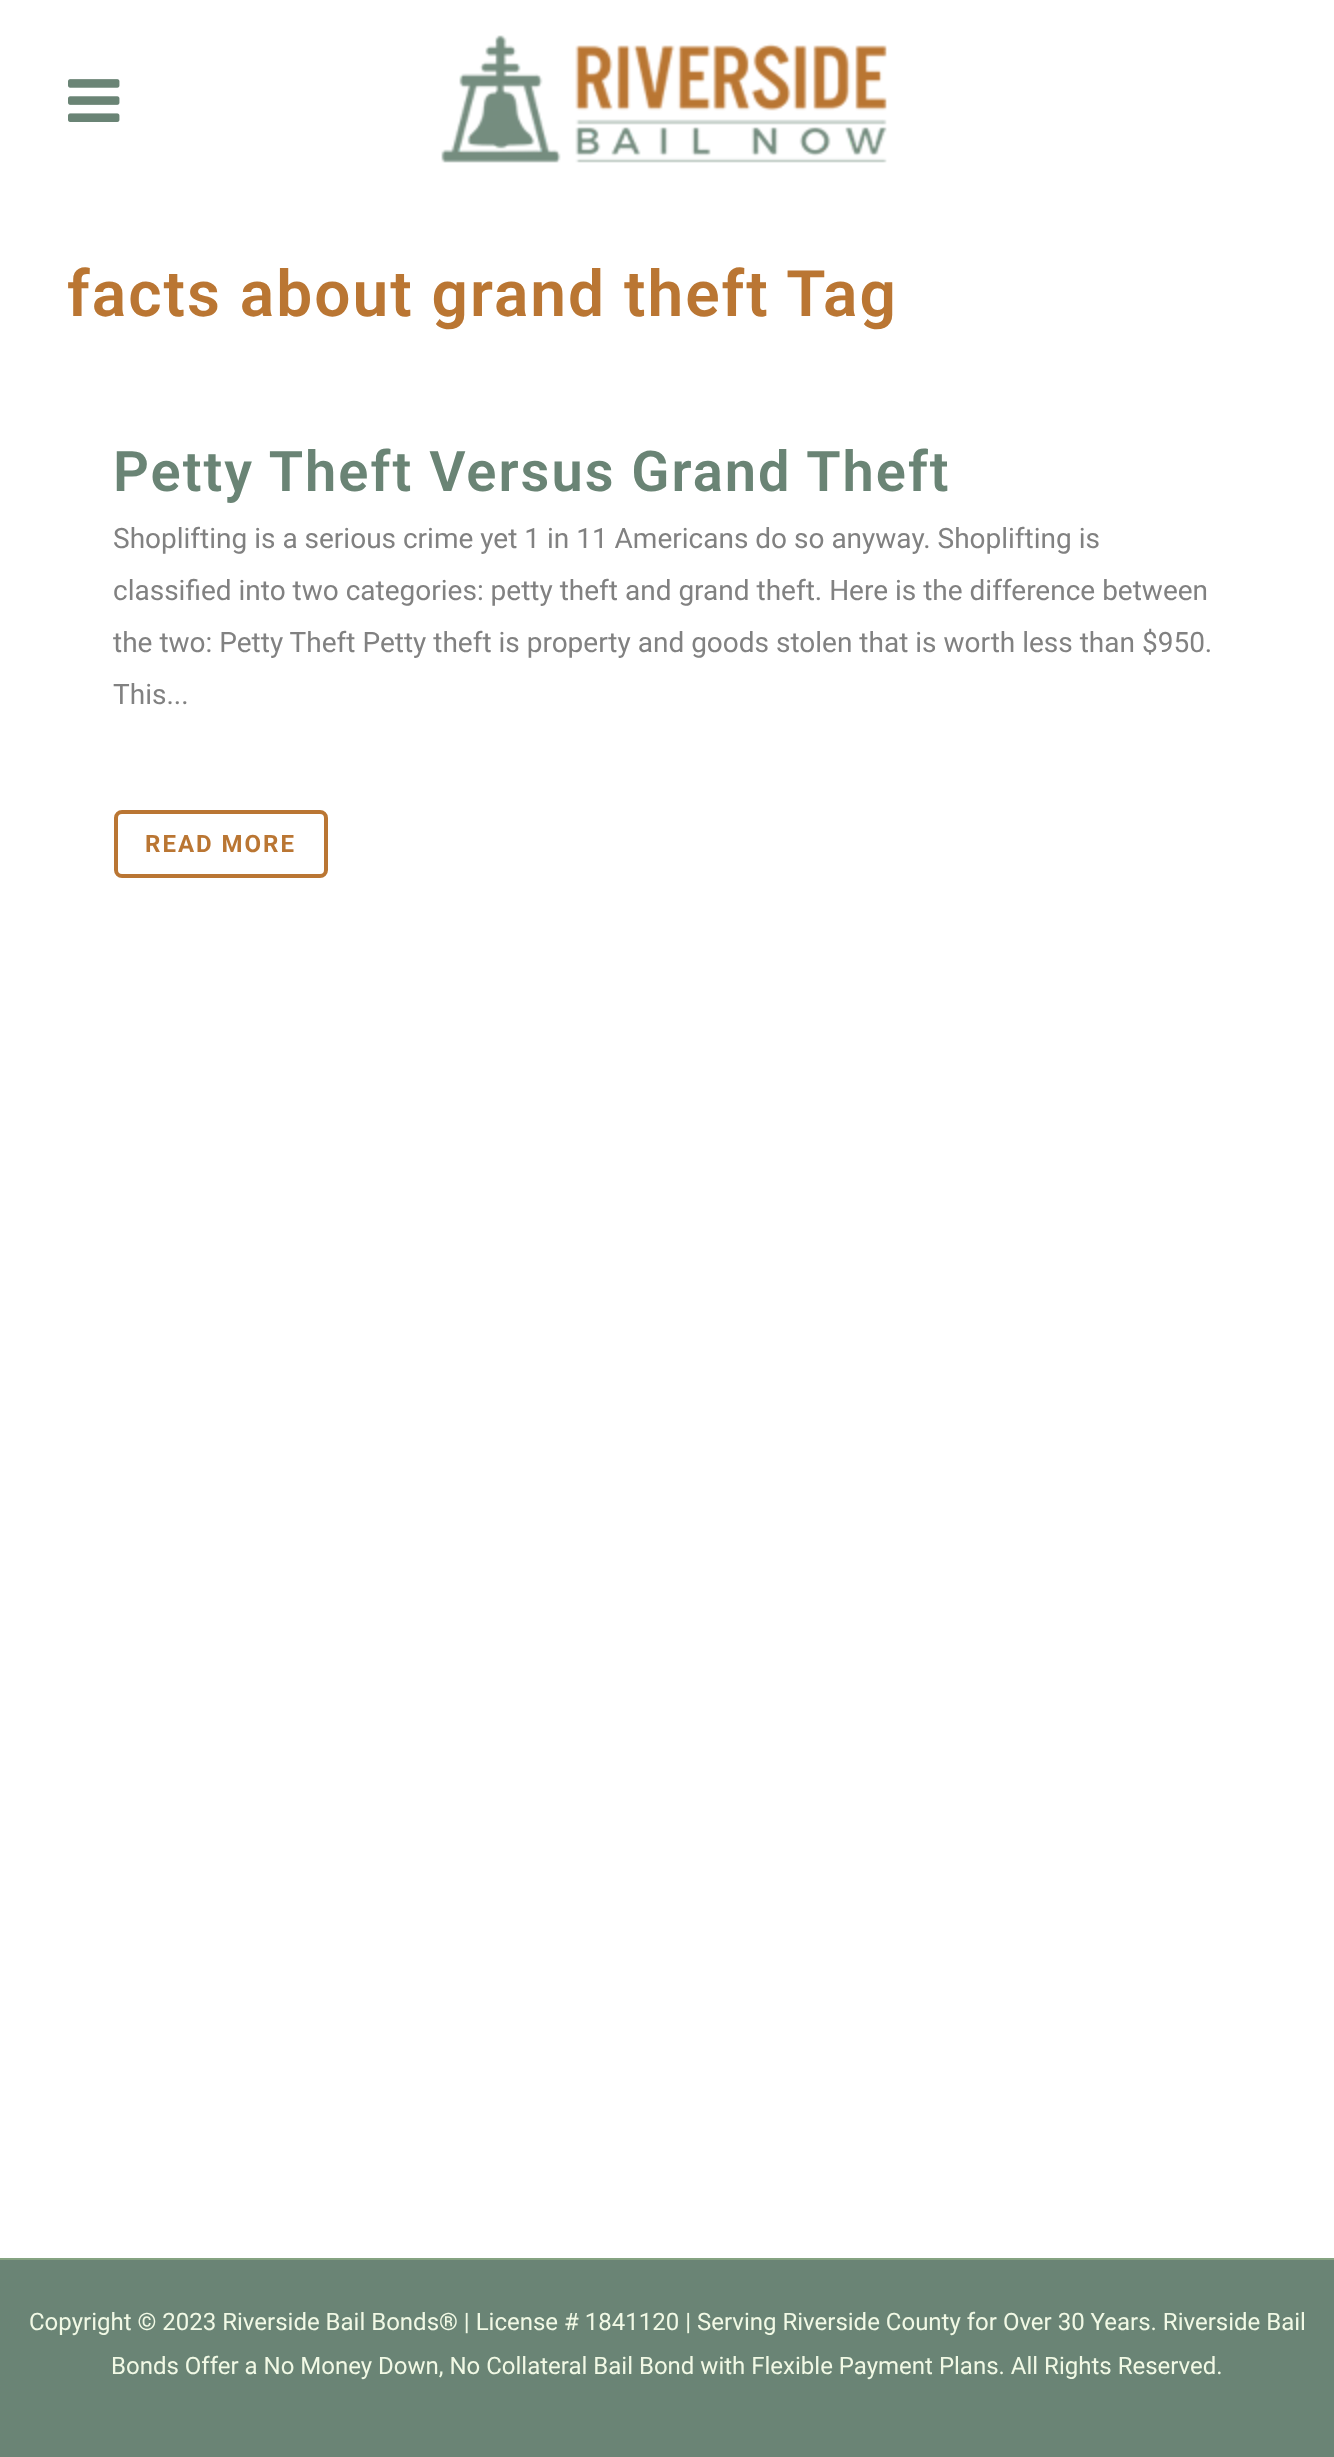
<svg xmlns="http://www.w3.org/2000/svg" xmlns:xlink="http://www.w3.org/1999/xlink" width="1334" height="2457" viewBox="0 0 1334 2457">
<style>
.cls-1{font:600 64px Roboto;letter-spacing:2px;fill:#ba7633}
.cls-2{font:600 56px Roboto;letter-spacing:2px;fill:#6a8475}
.cls-3{font:28px Roboto;fill:#818181}
.cls-4{font:bold 24px Roboto;letter-spacing:2px;fill:#ba7633}
.cls-5{font:24px Roboto;fill:#f1f9e5}
</style>
<rect width="100%" height="100%" fill="#ffffff"/>
<image xlink:href="image0.png" x="68" y="79" width="52" height="43"/>
<image xlink:href="image1.png" x="441" y="35" width="446" height="128"/>
<rect fill="none" stroke="#ba7633" stroke-width="4" x="116" y="812" width="210" height="64" rx="6"/>
<rect fill="#6a8475" x="0" y="2260" width="1334" height="197"/>
<rect fill="#85a382" x="0" y="2258" width="1334" height="2"/>
<text class="cls-1" x="67" y="316">facts about grand theft Tag</text>
<text class="cls-2" x="113" y="491">Petty Theft Versus Grand Theft</text>
<text class="cls-3"><tspan x="113" y="548">Shoplifting is a serious crime yet 1 in 11 Americans do so anyway. Shoplifting is</tspan><tspan x="113" y="600">classified into two categories: petty theft and grand theft. Here is the difference between</tspan><tspan x="113" y="652">the two: Petty Theft Petty theft is property and goods stolen that is worth less than $950.</tspan><tspan x="113" y="704">This...</tspan></text>
<text class="cls-4" x="145" y="852">READ MORE</text>
<text class="cls-5" x="29" y="2330">Copyright © 2023 Riverside Bail Bonds® | License # 1841120 | Serving Riverside County for Over 30 Years. Riverside Bail</text>
<text class="cls-5" x="111" y="2374">Bonds Offer a No Money Down, No Collateral Bail Bond with Flexible Payment Plans. All Rights Reserved.</text>
</svg>
